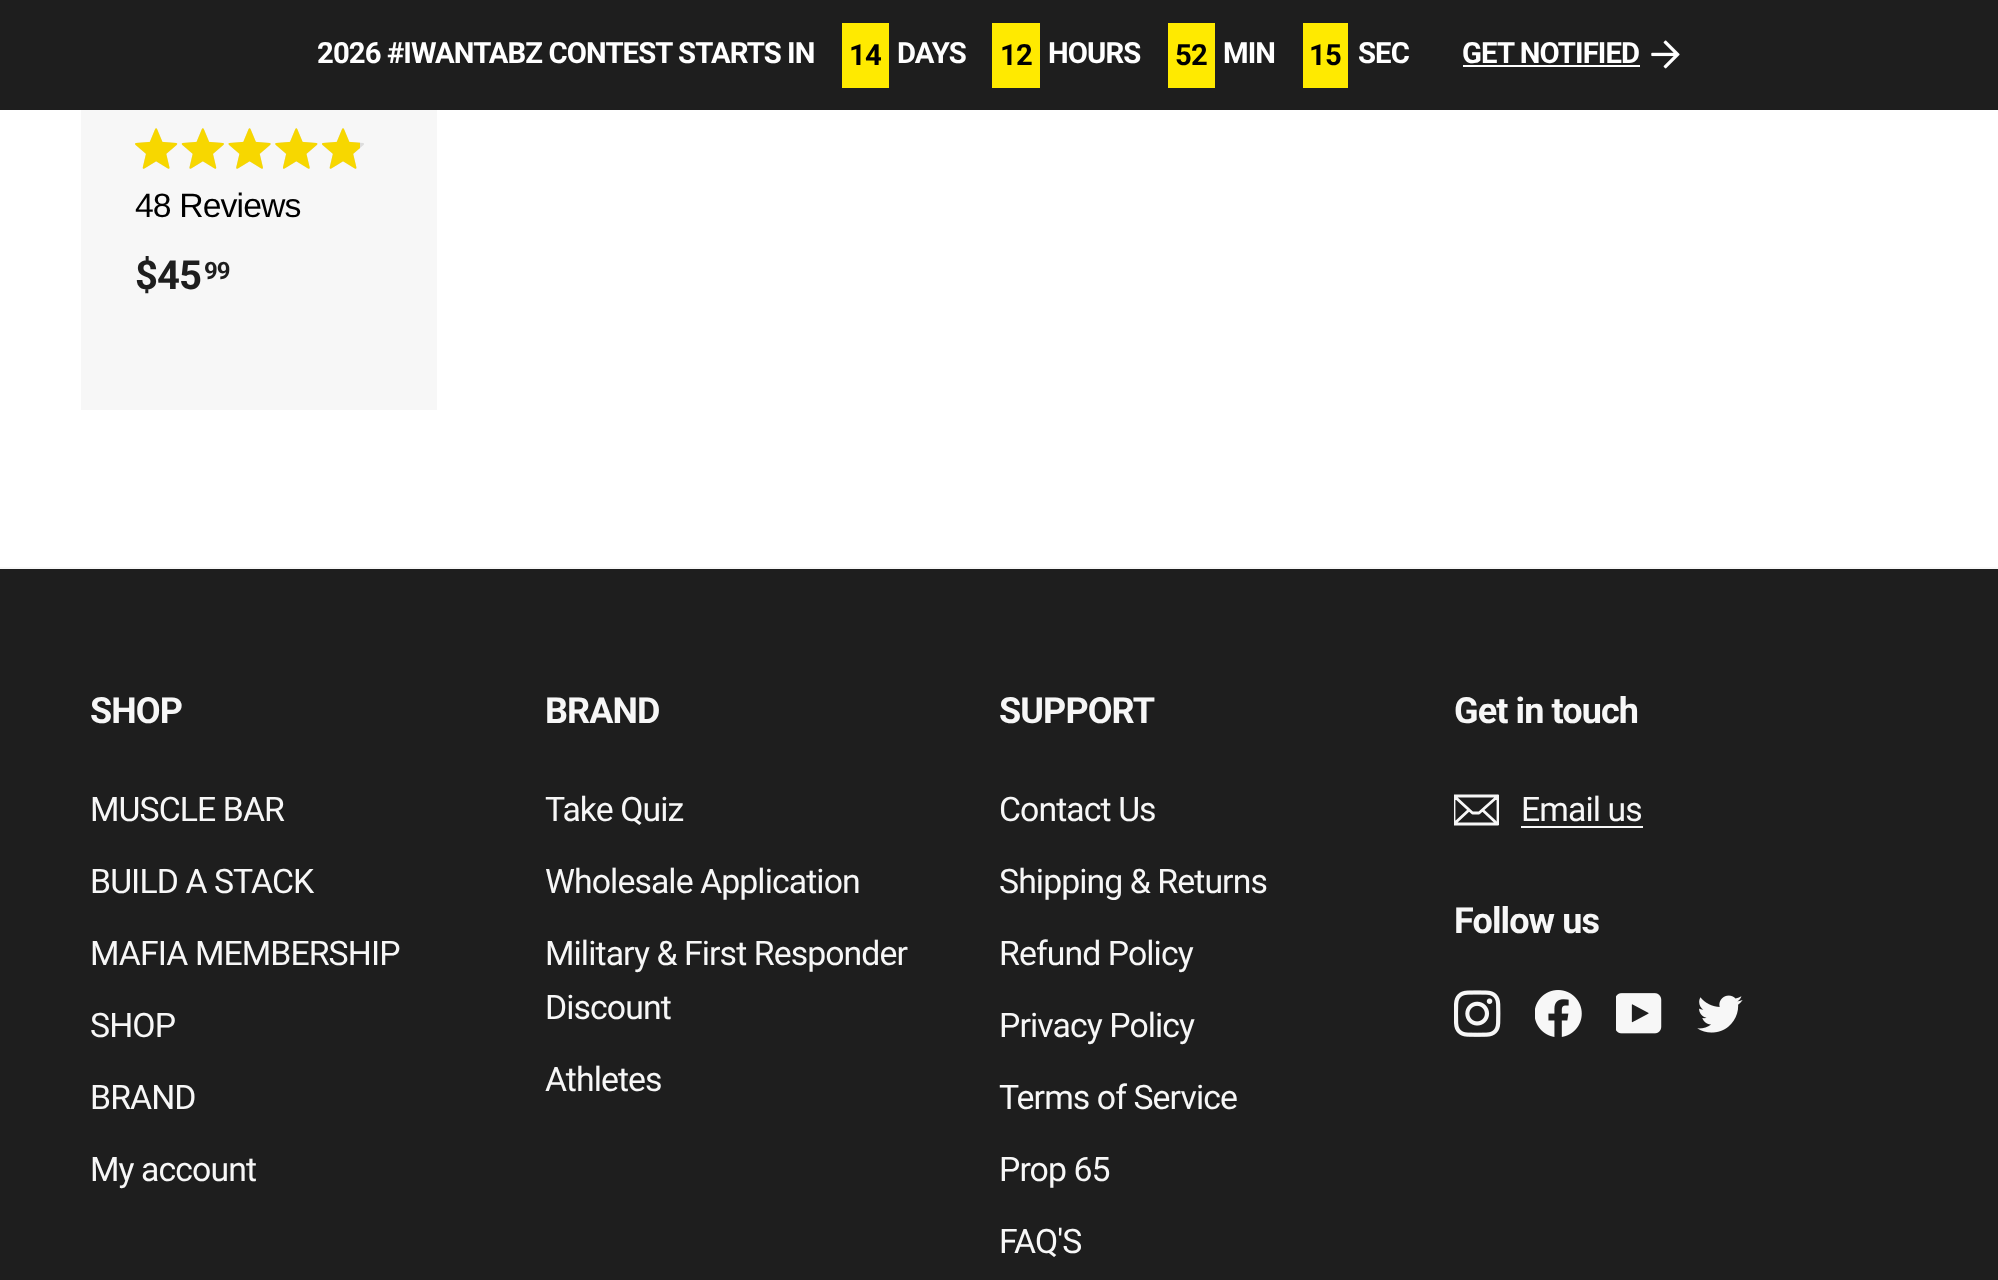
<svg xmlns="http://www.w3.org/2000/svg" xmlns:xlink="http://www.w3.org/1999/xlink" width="1998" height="1280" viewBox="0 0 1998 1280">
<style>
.cls-1{font:bold 29.25px Roboto;letter-spacing:-0.9px;fill:#ffffff}
.cls-2{font:bold 29.25px Roboto;letter-spacing:-0.9px;fill:#000000}
.cls-3{font:33.75px Liberation Sans;letter-spacing:-0.9px;fill:#000000}
.cls-4{font:bold 40px Roboto;letter-spacing:-0.9px;fill:#1e1e1e}
.cls-5{font:bold 24px Roboto;letter-spacing:-0.9px;fill:#1e1e1e}
.cls-6{font:bold 36px Roboto;letter-spacing:-0.9px;fill:#f7f7f7}
.cls-7{font:33.75px Roboto;letter-spacing:-0.9px;fill:#f7f7f7}
</style>
<defs>
<clipPath id="clip1"><rect x="1454" y="788" width="45" height="45"/></clipPath>
</defs>
<rect width="100%" height="100%" fill="#ffffff"/>
<rect fill="#1e1e1e" x="0" y="0" width="1998" height="110"/>
<rect fill="#ffea00" x="842" y="23" width="47" height="65"/>
<rect fill="#ffea00" x="992" y="23" width="48" height="65"/>
<rect fill="#ffea00" x="1168" y="23" width="47" height="65"/>
<rect fill="#ffea00" x="1303" y="23" width="45" height="65"/>
<rect fill="#ffffff" x="1463" y="65" width="177" height="2"/>
<image xlink:href="image0.png" x="1651" y="40" width="29" height="29"/>
<image xlink:href="image1.png" x="135" y="128" width="229" height="41"/>
<image xlink:href="image2.png" x="135" y="128" width="225" height="41"/>
<rect fill="#000000" fill-opacity="0.03" x="81" y="110" width="356" height="300"/>
<rect fill="#1e1e1e" x="0" y="569" width="1998" height="711"/>
<rect fill="#f7f7f7" x="0" y="567" width="1998" height="2"/>
<g clip-path="url(#clip1)">
<path fill="none" stroke="#f7f7f7" stroke-width="2.8" stroke-linecap="round" stroke-linejoin="round" d="M1498 824H1454V796H1498ZM1454 796L1472.5 813H1479L1498 796M1469 810L1454.5 823.5M1497.5 824L1482.5 810"/>
</g>
<rect fill="#f7f7f7" x="1521" y="826" width="122" height="2"/>
<image xlink:href="image3.png" x="1454" y="990" width="47" height="47"/>
<image xlink:href="image4.png" x="1535" y="990" width="47" height="47"/>
<image xlink:href="image5.png" x="1616" y="993" width="46" height="41"/>
<image xlink:href="image6.png" x="1697" y="995" width="46" height="38"/>
<text class="cls-1" x="317" y="63">2026 #IWANTABZ CONTEST STARTS IN</text>
<text class="cls-2" x="849" y="65">14</text>
<text class="cls-1" x="897" y="63">DAYS</text>
<text class="cls-2" x="1000" y="65">12</text>
<text class="cls-1" x="1048" y="63">HOURS</text>
<text class="cls-2" x="1175" y="65">52</text>
<text class="cls-1" x="1223" y="63">MIN</text>
<text class="cls-2" x="1309" y="65">15</text>
<text class="cls-1" x="1358" y="63">SEC</text>
<text class="cls-1" x="1462" y="63">GET NOTIFIED</text>
<text class="cls-3" x="135" y="217">48 Reviews</text>
<text class="cls-4" x="135" y="289">$45</text>
<text class="cls-5" x="204" y="279">99</text>
<text class="cls-6" x="90" y="723">SHOP</text>
<text class="cls-7" x="90" y="821">MUSCLE BAR</text>
<text class="cls-7" x="90" y="893">BUILD A STACK</text>
<text class="cls-7" x="90" y="965">MAFIA MEMBERSHIP</text>
<text class="cls-7" x="90" y="1037">SHOP</text>
<text class="cls-7" x="90" y="1109">BRAND</text>
<text class="cls-7" x="90" y="1181">My account</text>
<text class="cls-6" x="545" y="723">BRAND</text>
<text class="cls-7" x="545" y="821">Take Quiz</text>
<text class="cls-7" x="545" y="893">Wholesale Application</text>
<text class="cls-7"><tspan x="545" y="965">Military &amp; First Responder</tspan><tspan x="545" y="1019">Discount</tspan></text>
<text class="cls-7" x="545" y="1091">Athletes</text>
<text class="cls-6" x="999" y="723">SUPPORT</text>
<text class="cls-7" x="999" y="821">Contact Us</text>
<text class="cls-7" x="999" y="893">Shipping &amp; Returns</text>
<text class="cls-7" x="999" y="965">Refund Policy</text>
<text class="cls-7" x="999" y="1037">Privacy Policy</text>
<text class="cls-7" x="999" y="1109">Terms of Service</text>
<text class="cls-7" x="999" y="1181">Prop 65</text>
<text class="cls-7" x="999" y="1253">FAQ'S</text>
<text class="cls-6" x="1454" y="723">Get in touch</text>
<text class="cls-7" x="1521" y="821">Email us</text>
<text class="cls-6" x="1454" y="933">Follow us</text>
</svg>
